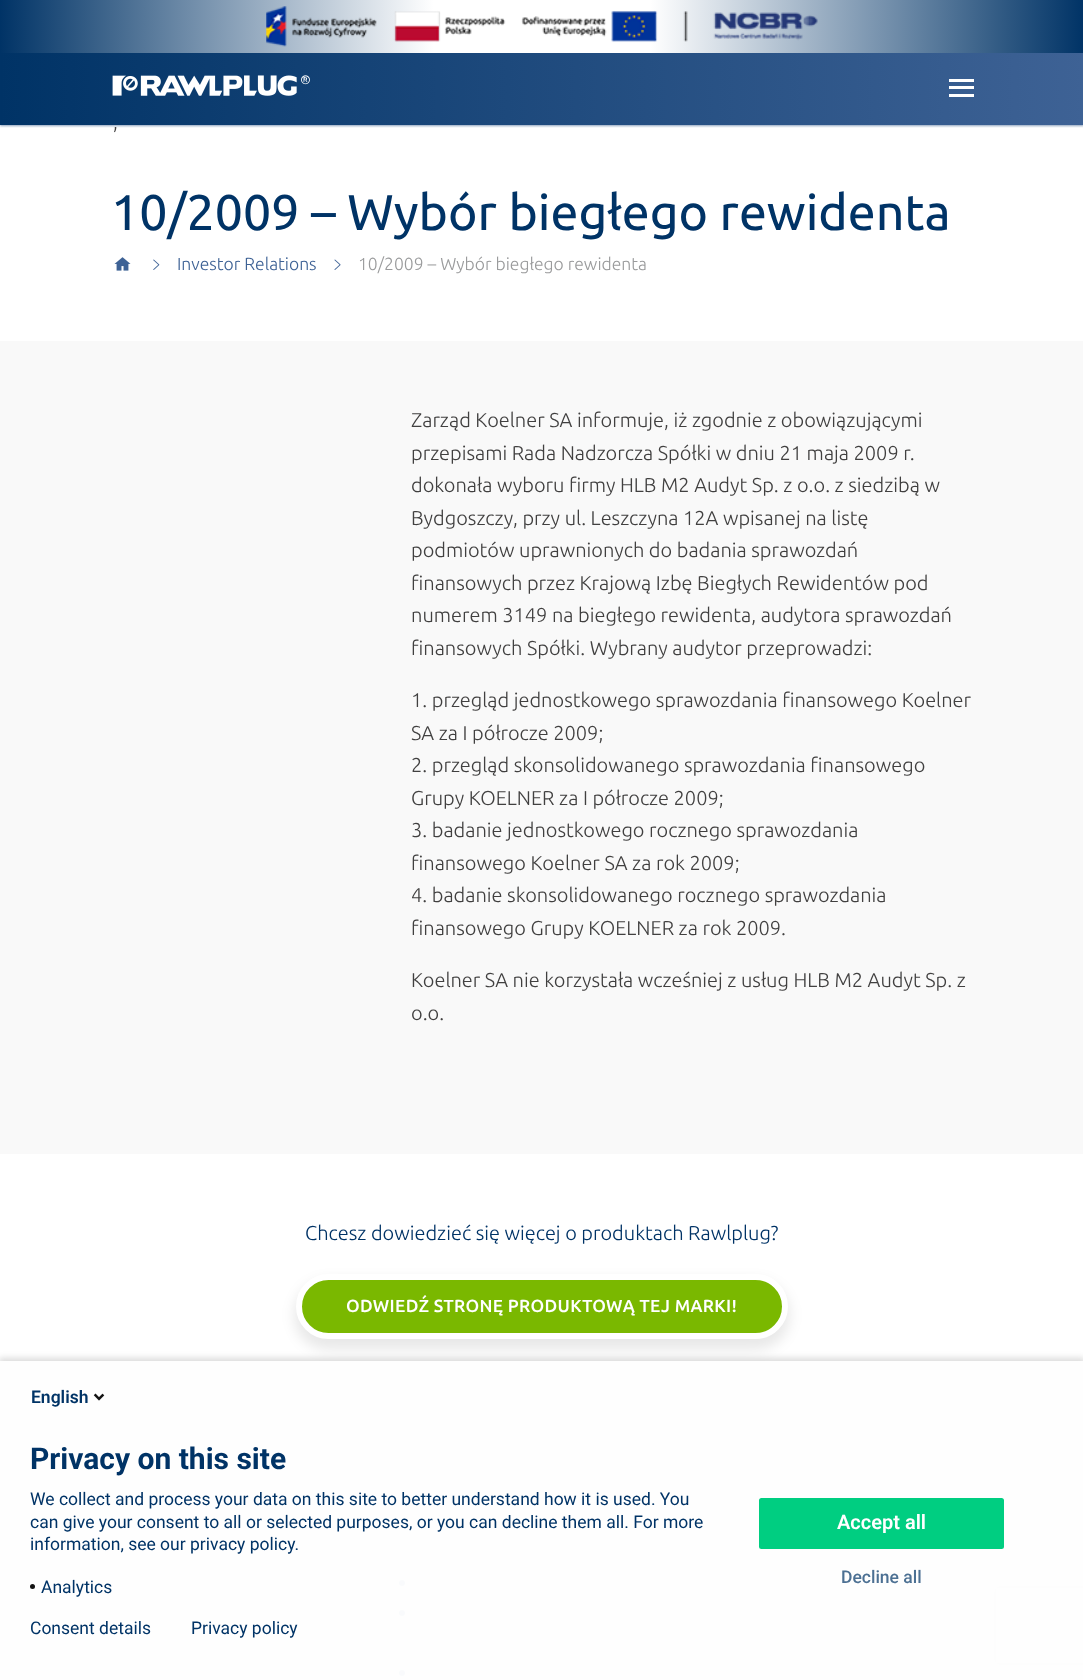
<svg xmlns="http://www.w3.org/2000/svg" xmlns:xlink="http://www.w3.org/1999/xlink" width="1083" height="1680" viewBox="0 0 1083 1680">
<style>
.cls-1{font:300 20px Ubuntu;fill:#414040}
.cls-2{font:50px Ubuntu;fill:#003366}
.cls-3{font:300 17.5px Ubuntu;fill:#3e6295}
.cls-4{font:300 17.5px Ubuntu;fill:#9a9b9c}
.cls-5{font:300 20px Ubuntu;fill:#003366}
.cls-6{font:500 17.5px Ubuntu;letter-spacing:0.35px;fill:#ffffff}
.cls-7{font:600 17.5px Roboto;fill:#003366}
.cls-8{font:bold 30px Roboto;fill:#003366}
.cls-9{font:17.5px Roboto;fill:#003366}
.cls-10{font:600 20px Roboto;fill:#ffffff}
.cls-11{font:500 17.5px Roboto;fill:#4c7093}
</style>
<defs>
<linearGradient id="g1" gradientUnits="userSpaceOnUse" x1="0" y1="63" x2="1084" y2="62"><stop offset="0" stop-color="#003366"/><stop offset="1" stop-color="#3e6295"/></linearGradient>
<linearGradient id="g2" gradientUnits="userSpaceOnUse" x1="0" y1="26" x2="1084" y2="26"><stop offset="0" stop-color="#003366"/><stop offset="0.4" stop-color="#ffffff"/><stop offset="0.6" stop-color="#ffffff"/><stop offset="1" stop-color="#003366"/></linearGradient>
<clipPath id="clip1"><path d="M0 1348H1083V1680H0ZM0 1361H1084V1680H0Z" clip-rule="evenodd"/></clipPath>
<clipPath id="clip2"><path d="M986 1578H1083V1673H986ZM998.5 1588H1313.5C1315 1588 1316 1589 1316 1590.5V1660.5C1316 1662 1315 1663 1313.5 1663H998.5C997 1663 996 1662 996 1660.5V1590.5C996 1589 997 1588 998.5 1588Z" clip-rule="evenodd"/></clipPath>
</defs>
<rect width="100%" height="100%" fill="#ffffff"/>
<rect fill="#285184" fill-opacity="0.55" filter="blur(1px)" x="0" y="1" width="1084" height="125"/>
<rect fill="url(#g1)" x="0" y="53" width="1083" height="72"/>
<rect fill="url(#g2)" x="0" y="0" width="1083" height="53"/>
<image xlink:href="image0.png" x="266" y="6" width="552" height="41"/>
<image xlink:href="image1.png" x="112" y="75" width="198" height="21"/>
<rect fill="#ffffff" x="949" y="86" width="25" height="3"/>
<rect fill="#ffffff" x="949" y="79" width="25" height="3"/>
<rect fill="#ffffff" x="949" y="94" width="25" height="3"/>
<image xlink:href="image2.png" x="114" y="257" width="17" height="14"/>
<image xlink:href="image3.png" x="153" y="259" width="7" height="11"/>
<image xlink:href="image4.png" x="334" y="259" width="7" height="11"/>
<rect fill="#f9f9f9" x="0" y="341" width="1083" height="813"/>
<rect fill="#000000" fill-opacity="0.09" filter="blur(6.5px)" x="294" y="1280" width="496" height="70" rx="35"/>
<rect fill="#7ab800" stroke="#ffffff" stroke-width="6" x="299" y="1277" width="486" height="59" rx="29.5"/>
<rect fill="#f5f5f5" x="0" y="1426" width="1083" height="254"/>
<circle fill="#1c5188" cx="402" cy="1583" r="3"/>
<circle fill="#1c5188" cx="402" cy="1613" r="3"/>
<circle fill="#1c5188" cx="402" cy="1673" r="3"/>
<g clip-path="url(#clip1)">
<rect fill="#000000" fill-opacity="0.14" filter="blur(3px)" x="-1" y="1358" width="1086" height="321"/>
</g>
<g clip-path="url(#clip2)">
<rect fill="#808080" filter="blur(3px)" x="996" y="1588" width="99" height="75" rx="2.5"/>
</g>
<rect fill="#fefefe" fill-opacity="0.98" x="0" y="1361" width="1083" height="319"/>
<image xlink:href="image5.png" x="93" y="1393" width="12" height="8"/>
<circle fill="#131313" cx="32.5" cy="1586.5" r="2.5"/>
<rect fill="#00ce81" stroke="#00ce81" stroke-width="3" x="760.5" y="1499.5" width="242" height="48" rx="1"/>
<text class="cls-1" x="113" y="129">,</text>
<text class="cls-2" x="111" y="230">10/2009 – Wybór biegłego rewidenta</text>
<text class="cls-3" x="177" y="270">Investor Relations</text>
<text class="cls-4" x="358" y="270">10/2009 – Wybór biegłego rewidenta</text>
<text class="cls-1"><tspan x="411" y="427">Zarząd Koelner SA informuje, iż zgodnie z obowiązującymi</tspan><tspan x="411" y="460">przepisami Rada Nadzorcza Spółki w dniu 21 maja 2009 r.</tspan><tspan x="411" y="492">dokonała wyboru firmy HLB M2 Audyt Sp. z o.o. z siedzibą w</tspan><tspan x="411" y="525">Bydgoszczy, przy ul. Leszczyna 12A wpisanej na listę</tspan><tspan x="411" y="557">podmiotów uprawnionych do badania sprawozdań</tspan><tspan x="411" y="590">finansowych przez Krajową Izbę Biegłych Rewidentów pod</tspan><tspan x="411" y="622">numerem 3149 na biegłego rewidenta, audytora sprawozdań</tspan><tspan x="411" y="655">finansowych Spółki. Wybrany audytor przeprowadzi:</tspan></text>
<text class="cls-1"><tspan x="411" y="707">1. przegląd jednostkowego sprawozdania finansowego Koelner</tspan><tspan x="411" y="740">SA za I półrocze 2009;</tspan><tspan x="411" y="772">2. przegląd skonsolidowanego sprawozdania finansowego</tspan><tspan x="411" y="805">Grupy KOELNER za I półrocze 2009;</tspan><tspan x="411" y="837">3. badanie jednostkowego rocznego sprawozdania</tspan><tspan x="411" y="870">finansowego Koelner SA za rok 2009;</tspan><tspan x="411" y="902">4. badanie skonsolidowanego rocznego sprawozdania</tspan><tspan x="411" y="935">finansowego Grupy KOELNER za rok 2009.</tspan></text>
<text class="cls-1"><tspan x="411" y="987">Koelner SA nie korzystała wcześniej z usług HLB M2 Audyt Sp. z</tspan><tspan x="411" y="1020">o.o.</tspan></text>
<text class="cls-5" x="305" y="1240">Chcesz dowiedzieć się więcej o produktach Rawlplug?</text>
<text class="cls-6" x="346" y="1312">ODWIEDŹ STRONĘ PRODUKTOWĄ TEJ MARKI!</text>
<text class="cls-7" x="31" y="1403">English</text>
<text class="cls-8" x="30" y="1469">Privacy on this site</text>
<text class="cls-9"><tspan x="30" y="1505">We collect and process your data on this site to better understand how it is used. You</tspan><tspan x="30" y="1528">can give your consent to all or selected purposes, or you can decline them all. For more</tspan><tspan x="30" y="1550">information, see our privacy policy.</tspan></text>
<text class="cls-9" x="41" y="1593">Analytics</text>
<text class="cls-10" x="837" y="1529">Accept all</text>
<text class="cls-11" x="841" y="1583">Decline all</text>
<text class="cls-9" x="30" y="1634">Consent details</text>
<text class="cls-9" x="191" y="1634">Privacy policy</text>
</svg>
